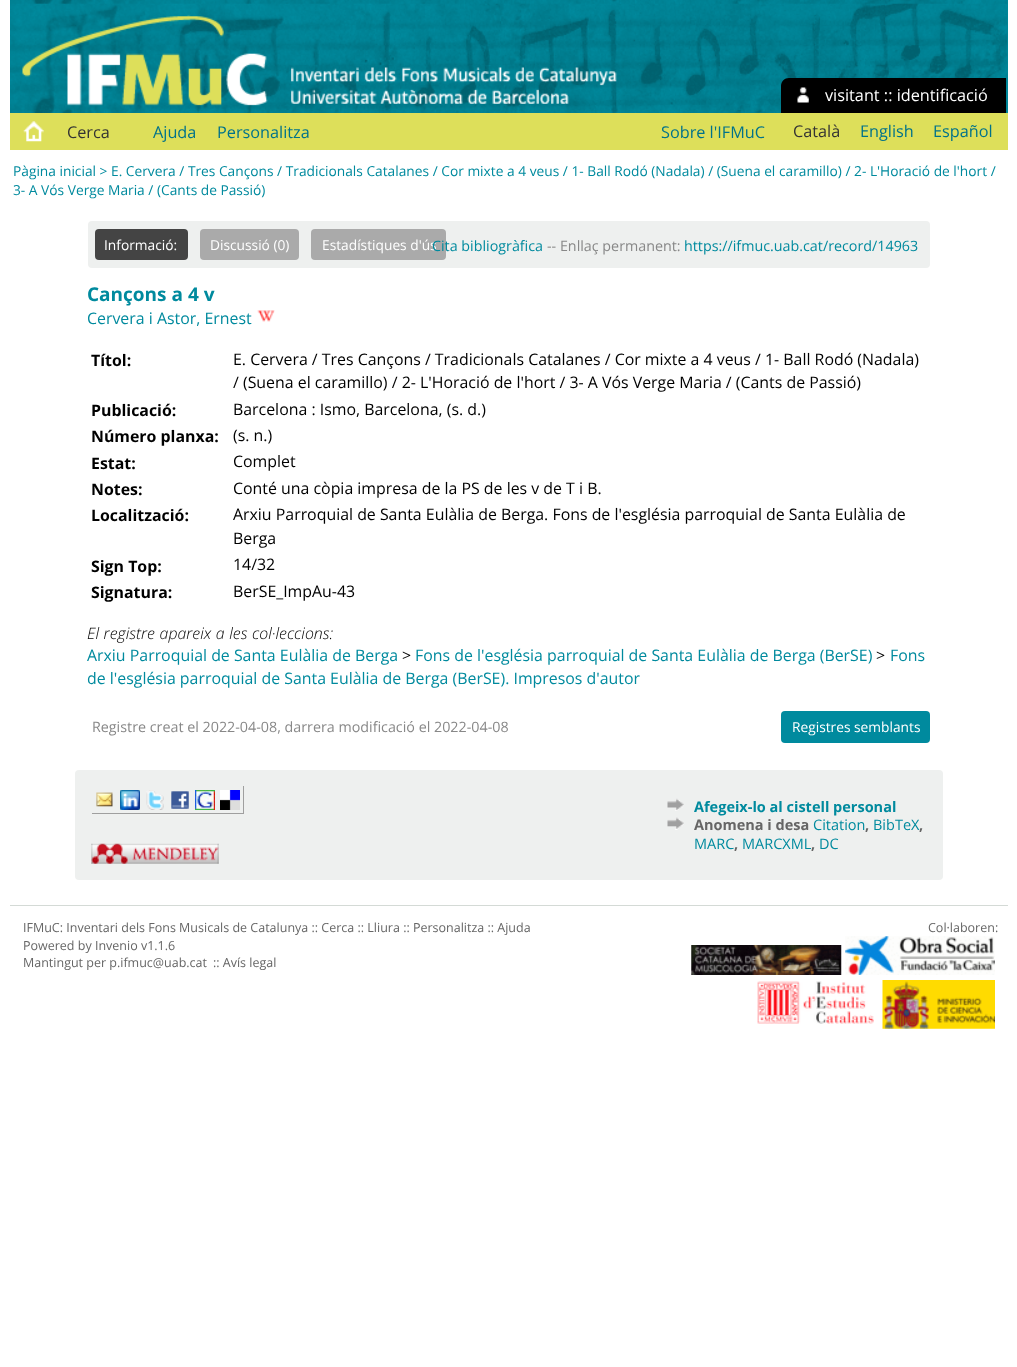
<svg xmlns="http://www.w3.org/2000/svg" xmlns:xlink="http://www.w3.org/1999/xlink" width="1017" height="1367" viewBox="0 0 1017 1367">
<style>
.cls-1{font:16.25px Open Sans;fill:#ffffff}
.cls-2{font:16.25px Open Sans;fill:#333333}
.cls-3{font:16.25px Open Sans;fill:#00728a}
.cls-4{font:13.75px Open Sans;fill:#008a9e}
.cls-5{font:13.75px Open Sans;fill:#ffffff}
.cls-6{font:14.3px Open Sans;fill:#008a9e}
.cls-7{font:14.3px Open Sans;fill:#888888}
.cls-8{font:bold 19px Open Sans;fill:#008a9e}
.cls-9{font:15.9px Open Sans;fill:#008a9e}
.cls-10{font:bold 15.9px Open Sans;fill:#000000}
.cls-11{font:15.9px Open Sans;fill:#000000}
.cls-12{font:italic 300 15.9px Open Sans;fill:#000000}
.cls-13{font:bold 14.5px Open Sans;fill:#008a9e}
.cls-14{font:bold 14.5px Open Sans;fill:#666666}
.cls-15{font:14.5px Open Sans;fill:#008a9e}
.cls-16{font:12.5px Open Sans;fill:#666666}
</style>
<rect width="100%" height="100%" fill="#ffffff"/>
<rect fill="#00879a" x="1007" y="0" width="1" height="113"/>
<image xlink:href="image0.png" x="10" y="0" width="998" height="113"/>
<path fill="#000000" d="M789 78H1006V113H781V86C781 81.5 784.5 78 789 78Z"/>
<image xlink:href="image1.png" x="797" y="87" width="12" height="16"/>
<rect fill="#dddf5a" x="10" y="113" width="998" height="37"/>
<image xlink:href="image2.png" x="23" y="121" width="21" height="21"/>
<rect fill="#eef0ef" x="88" y="221" width="842" height="47" rx="4"/>
<rect fill="#444444" x="95" y="229" width="93" height="31" rx="4"/>
<rect fill="#aaaaaa" x="200" y="229" width="99" height="31" rx="4"/>
<rect fill="#aaaaaa" x="311" y="229" width="135" height="31" rx="4"/>
<image xlink:href="image3.png" x="257" y="310" width="18" height="12"/>
<rect fill="#008a9e" x="781" y="711" width="149" height="32" rx="4"/>
<rect fill="#eef0ef" x="75" y="770" width="868" height="110" rx="4"/>
<rect fill="#9f9f9f" x="243" y="786" width="1" height="28"/>
<rect fill="#9f9f9f" x="91" y="813" width="153" height="1"/>
<rect fill="#eeeeee" x="91" y="813" width="1" height="1"/>
<image xlink:href="image4.png" x="96" y="792" width="17" height="15"/>
<image xlink:href="image5.png" x="120" y="790" width="20" height="20"/>
<image xlink:href="image6.png" x="146" y="790" width="18" height="20"/>
<image xlink:href="image7.png" x="171" y="791" width="18" height="18"/>
<image xlink:href="image8.png" x="195" y="790" width="20" height="20"/>
<image xlink:href="image9.png" x="220" y="790" width="20" height="20"/>
<image xlink:href="image10.png" x="91" y="843" width="128" height="21"/>
<image xlink:href="image11.png" x="667" y="798" width="17" height="13"/>
<image xlink:href="image12.png" x="667" y="817" width="17" height="13"/>
<rect fill="#d4dad6" x="10" y="905" width="998" height="1"/>
<image xlink:href="image13.png" x="691" y="945" width="151" height="30"/>
<image xlink:href="image14.png" x="845" y="936" width="150" height="39"/>
<image xlink:href="image15.png" x="757" y="981" width="117" height="43"/>
<image xlink:href="image16.png" x="882" y="980" width="113" height="49"/>
<text class="cls-1" x="825" y="101">visitant :: identificació</text>
<text class="cls-2" x="67" y="138">Cerca</text>
<text class="cls-3" x="153" y="138">Ajuda</text>
<text class="cls-3" x="217" y="138">Personalitza</text>
<text class="cls-3" x="661" y="138">Sobre l'IFMuC</text>
<text class="cls-2" x="793" y="137">Català</text>
<text class="cls-3" x="860" y="137">English</text>
<text class="cls-3" x="933" y="137">Español</text>
<text class="cls-4"><tspan x="13" y="176">Pàgina inicial &gt; E. Cervera / Tres Cançons / Tradicionals Catalanes / Cor mixte a 4 veus / 1- Ball Rodó (Nadala) / (Suena el caramillo) / 2- L'Horació de l'hort /</tspan><tspan x="13" y="195">3- A Vós Verge Maria / (Cants de Passió)</tspan></text>
<text class="cls-5" x="104" y="250">Informació:</text>
<text class="cls-5" x="210" y="250">Discussió (0)</text>
<text class="cls-5" x="322" y="250">Estadístiques d'ús</text>
<text class="cls-6" x="432" y="251">Cita bibliogràfica</text>
<text class="cls-7" x="547" y="251">-- Enllaç permanent:</text>
<text class="cls-6" x="684" y="251">https://ifmuc.uab.cat/record/14963</text>
<text class="cls-8" x="87" y="301">Cançons a 4 v</text>
<text class="cls-9" x="87" y="324">Cervera i Astor, Ernest</text>
<text class="cls-10" x="91" y="366">Títol:</text>
<text class="cls-11"><tspan x="233" y="365">E. Cervera / Tres Cançons / Tradicionals Catalanes / Cor mixte a 4 veus / 1- Ball Rodó (Nadala)</tspan><tspan x="233" y="388">/ (Suena el caramillo) / 2- L'Horació de l'hort / 3- A Vós Verge Maria / (Cants de Passió)</tspan></text>
<text class="cls-10" x="91" y="416">Publicació:</text>
<text class="cls-11" x="233" y="415">Barcelona : Ismo, Barcelona, (s. d.)</text>
<text class="cls-10" x="91" y="442">Número planxa:</text>
<text class="cls-11" x="233" y="441">(s. n.)</text>
<text class="cls-10" x="91" y="469">Estat:</text>
<text class="cls-11" x="233" y="467">Complet</text>
<text class="cls-10" x="91" y="495">Notes:</text>
<text class="cls-11" x="233" y="494">Conté una còpia impresa de la PS de les v de T i B.</text>
<text class="cls-10" x="91" y="521">Localització:</text>
<text class="cls-11"><tspan x="233" y="520">Arxiu Parroquial de Santa Eulàlia de Berga. Fons de l'església parroquial de Santa Eulàlia de</tspan><tspan x="233" y="544">Berga</tspan></text>
<text class="cls-10" x="91" y="572">Sign Top:</text>
<text class="cls-11" x="233" y="570">14/32</text>
<text class="cls-10" x="91" y="598">Signatura:</text>
<text class="cls-11" x="233" y="597">BerSE_ImpAu-43</text>
<text class="cls-12" x="87" y="639" word-spacing="0.5">El registre apareix a les col·leccions:</text>
<text class="cls-9" x="87" y="661">Arxiu Parroquial de Santa Eulàlia de Berga</text>
<text class="cls-11" x="402" y="661">&gt;</text>
<text class="cls-9" x="415" y="661">Fons de l'església parroquial de Santa Eulàlia de Berga (BerSE)</text>
<text class="cls-11" x="876" y="661">&gt;</text>
<text class="cls-9" x="890" y="661">Fons</text>
<text class="cls-9" x="87" y="684">de l'església parroquial de Santa Eulàlia de Berga (BerSE). Impresos d'autor</text>
<text class="cls-7" x="92" y="732">Registre creat el 2022-04-08, darrera modificació el 2022-04-08</text>
<text class="cls-5" x="792" y="732">Registres semblants</text>
<text class="cls-13" x="694" y="812">Afegeix-lo al cistell personal</text>
<text class="cls-14" x="694" y="830">Anomena i desa</text>
<text class="cls-15" x="813" y="830">Citation</text>
<text class="cls-14" x="865" y="830">,</text>
<text class="cls-15" x="873" y="830">BibTeX</text>
<text class="cls-14" x="919" y="830">,</text>
<text class="cls-15" x="694" y="849">MARC</text>
<text class="cls-14" x="734" y="849">,</text>
<text class="cls-15" x="742" y="849">MARCXML</text>
<text class="cls-14" x="811" y="849">,</text>
<text class="cls-15" x="819" y="849">DC</text>
<text class="cls-16"><tspan x="23" y="932">IFMuC: Inventari dels Fons Musicals de Catalunya :: Cerca :: Lliura :: Personalitza :: Ajuda</tspan><tspan x="23" y="950">Powered by Invenio v1.1.6</tspan><tspan x="23" y="967">Mantingut per p.ifmuc@uab.cat</tspan></text>
<text class="cls-16" x="213" y="967">:: Avís legal</text>
<text class="cls-16" x="928" y="932">Col·laboren:</text>
</svg>
